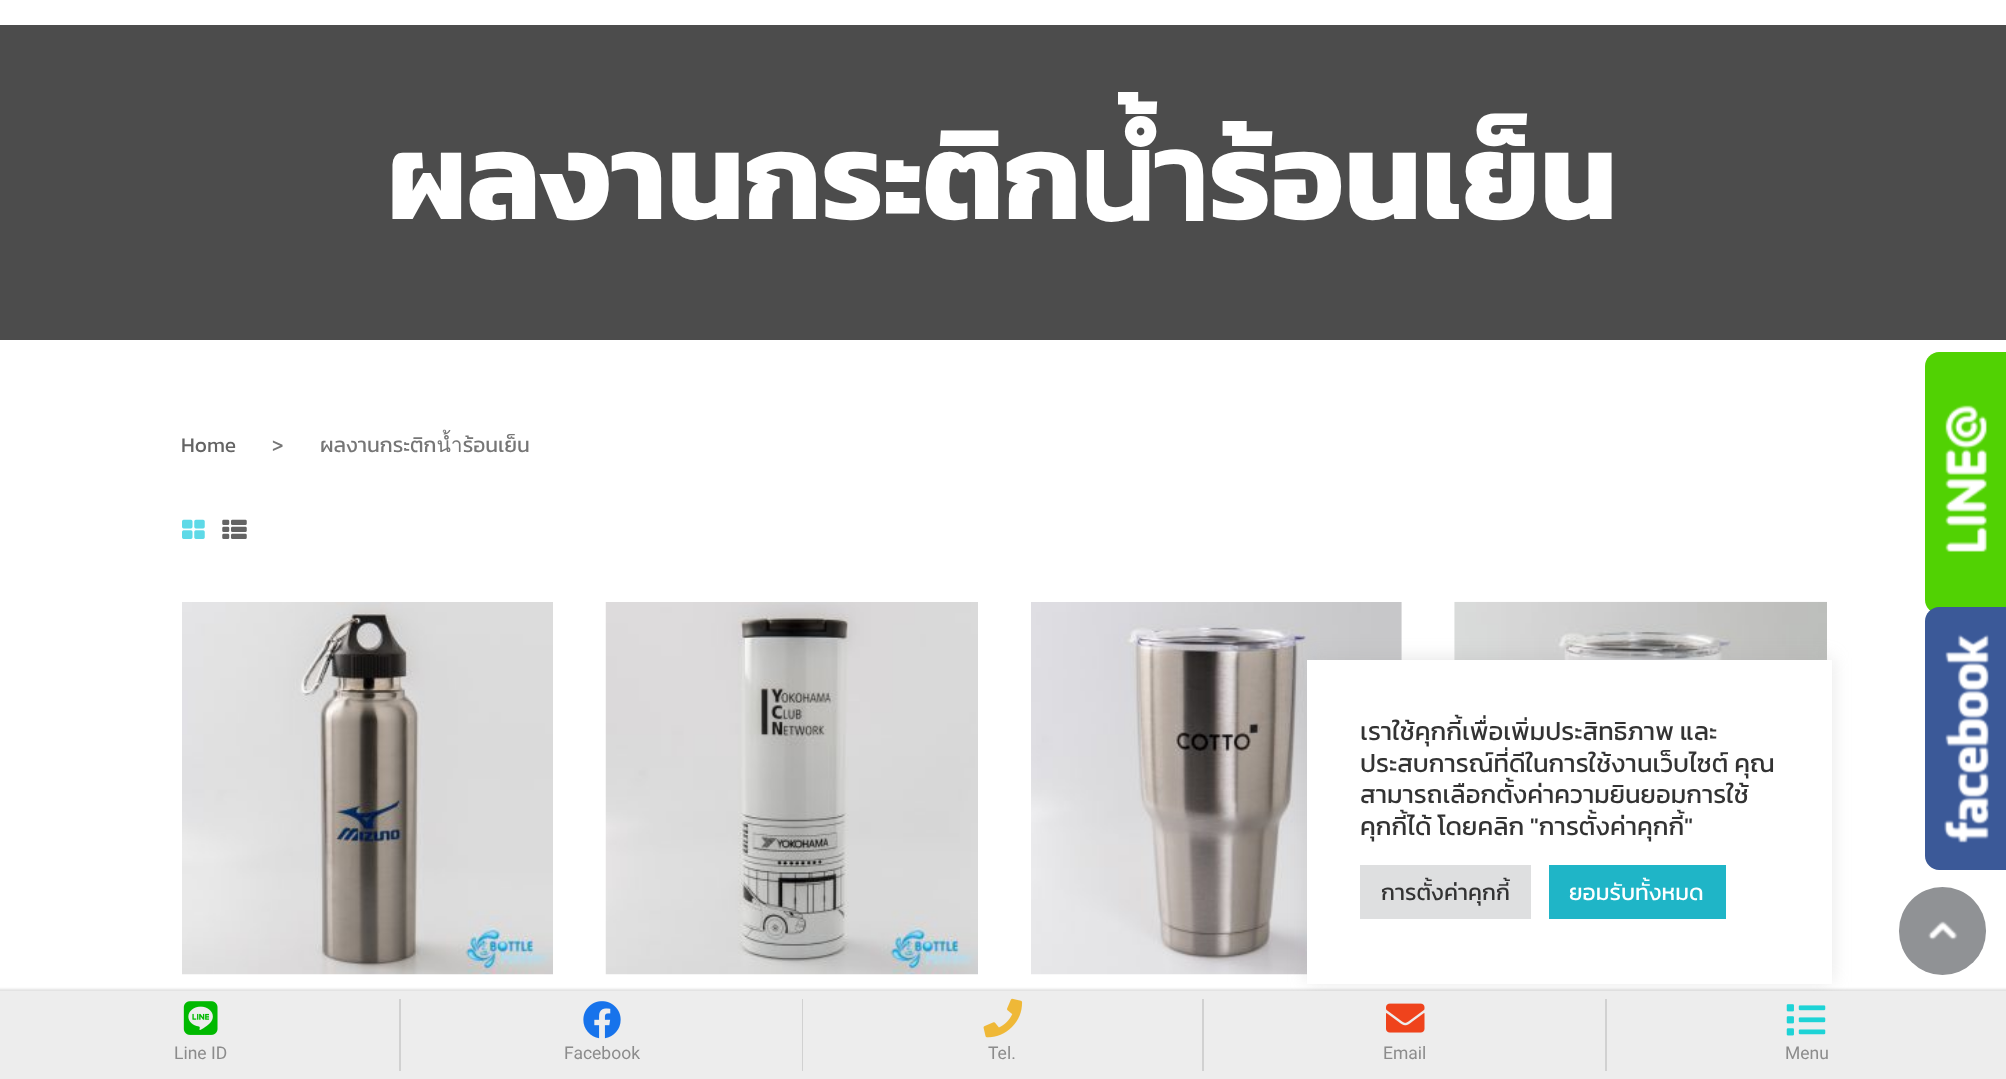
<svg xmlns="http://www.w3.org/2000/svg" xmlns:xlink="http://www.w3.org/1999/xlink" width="2006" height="1079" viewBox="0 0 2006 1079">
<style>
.cls-1{font:bold 122.5px Kanit;fill:#ffffff}
.cls-2{font:21px Kanit;fill:#646464}
.cls-3{font:21px Kanit;fill:#767676}
.cls-4{font:25.7px Kanit;fill:#333333}
.cls-5{font:22.75px Kanit;fill:#333333}
.cls-6{font:22.75px Kanit;fill:#ffffff}
.cls-7{font:17.5px Roboto;fill:#8c8c8c}
</style>
<rect width="100%" height="100%" fill="#ffffff"/>
<rect fill="#4c4c4c" x="0" y="25" width="2006" height="315"/>
<image xlink:href="image0.png" x="182" y="519" width="23" height="20"/>
<image xlink:href="image1.png" x="222" y="519" width="25" height="20"/>
<image xlink:href="image2.png" x="182" y="602" width="371" height="373"/>
<image xlink:href="image3.png" x="605" y="602" width="373" height="373"/>
<image xlink:href="image4.png" x="1031" y="602" width="371" height="373"/>
<image xlink:href="image5.png" x="1454" y="601" width="373" height="59"/>
<path fill="#51d203" d="M1939 352H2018V614H1939C1931.5 614 1925 607.5 1925 600V366C1925 358.5 1931.5 352 1939 352Z"/>
<image xlink:href="image6.png" x="1945" y="405" width="42" height="147"/>
<rect fill="#acabab" fill-opacity="0.3" filter="blur(9px)" x="1307" y="658" width="525" height="324"/>
<rect fill="#ffffff" x="1307" y="660" width="525" height="324"/>
<rect fill="#dedfe0" x="1360" y="865" width="171" height="54"/>
<rect fill="#1fb5c7" x="1549" y="865" width="177" height="54"/>
<path fill="#3b5998" d="M1939 607H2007V870H1939C1931.5 870 1925 863.5 1925 856V621C1925 613.5 1931.5 607 1939 607Z"/>
<image xlink:href="image7.png" x="1944" y="634" width="45" height="209"/>
<rect fill="#909295" x="1899" y="887" width="87" height="88" rx="43.5"/>
<image xlink:href="image8.png" x="1928" y="921" width="30" height="19"/>
<rect fill="#000000" fill-opacity="0.12" filter="blur(1px)" x="-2" y="989" width="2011" height="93"/>
<rect fill="#ededed" x="0" y="991" width="2006" height="88"/>
<image xlink:href="image9.png" x="183" y="1001" width="35" height="34"/>
<rect fill="#d1d1d1" x="399" y="999" width="2" height="72"/>
<image xlink:href="image10.png" x="583" y="1001" width="38" height="38"/>
<rect fill="#d1d1d1" x="802" y="999" width="1" height="72"/>
<image xlink:href="image11.png" x="983" y="998" width="40" height="40"/>
<rect fill="#d1d1d1" x="1202" y="999" width="2" height="72"/>
<image xlink:href="image12.png" x="1386" y="1003" width="39" height="30"/>
<rect fill="#d1d1d1" x="1605" y="999" width="2" height="72"/>
<image xlink:href="image13.png" x="1786" y="1004" width="40" height="32"/>
<text class="cls-1" x="387" y="219">ผลงานกระติกน้ำร้อนเย็น</text>
<text class="cls-2" x="181" y="452">Home</text>
<text class="cls-3" x="272" y="452">&gt;</text>
<text class="cls-3" x="320" y="452">ผลงานกระติกน้ำร้อนเย็น</text>
<text class="cls-4"><tspan x="1360" y="740">เราใช้คุกกี้เพื่อเพิ่มประสิทธิภาพ และ</tspan><tspan x="1360" y="772">ประสบการณ์ที่ดีในการใช้งานเว็บไซต์ คุณ</tspan><tspan x="1360" y="803">สามารถเลือกตั้งค่าความยินยอมการใช้</tspan><tspan x="1360" y="835">คุกกี้ได้ โดยคลิก "การตั้งค่าคุกกี้"</tspan></text>
<text class="cls-5" x="1381" y="900">การตั้งค่าคุกกี้</text>
<text class="cls-6" x="1569" y="900">ยอมรับทั้งหมด</text>
<text class="cls-7" x="174" y="1059">Line ID</text>
<text class="cls-7" x="564" y="1059">Facebook</text>
<text class="cls-7" x="988" y="1059">Tel.</text>
<text class="cls-7" x="1383" y="1059">Email</text>
<text class="cls-7" x="1785" y="1059">Menu</text>
</svg>
